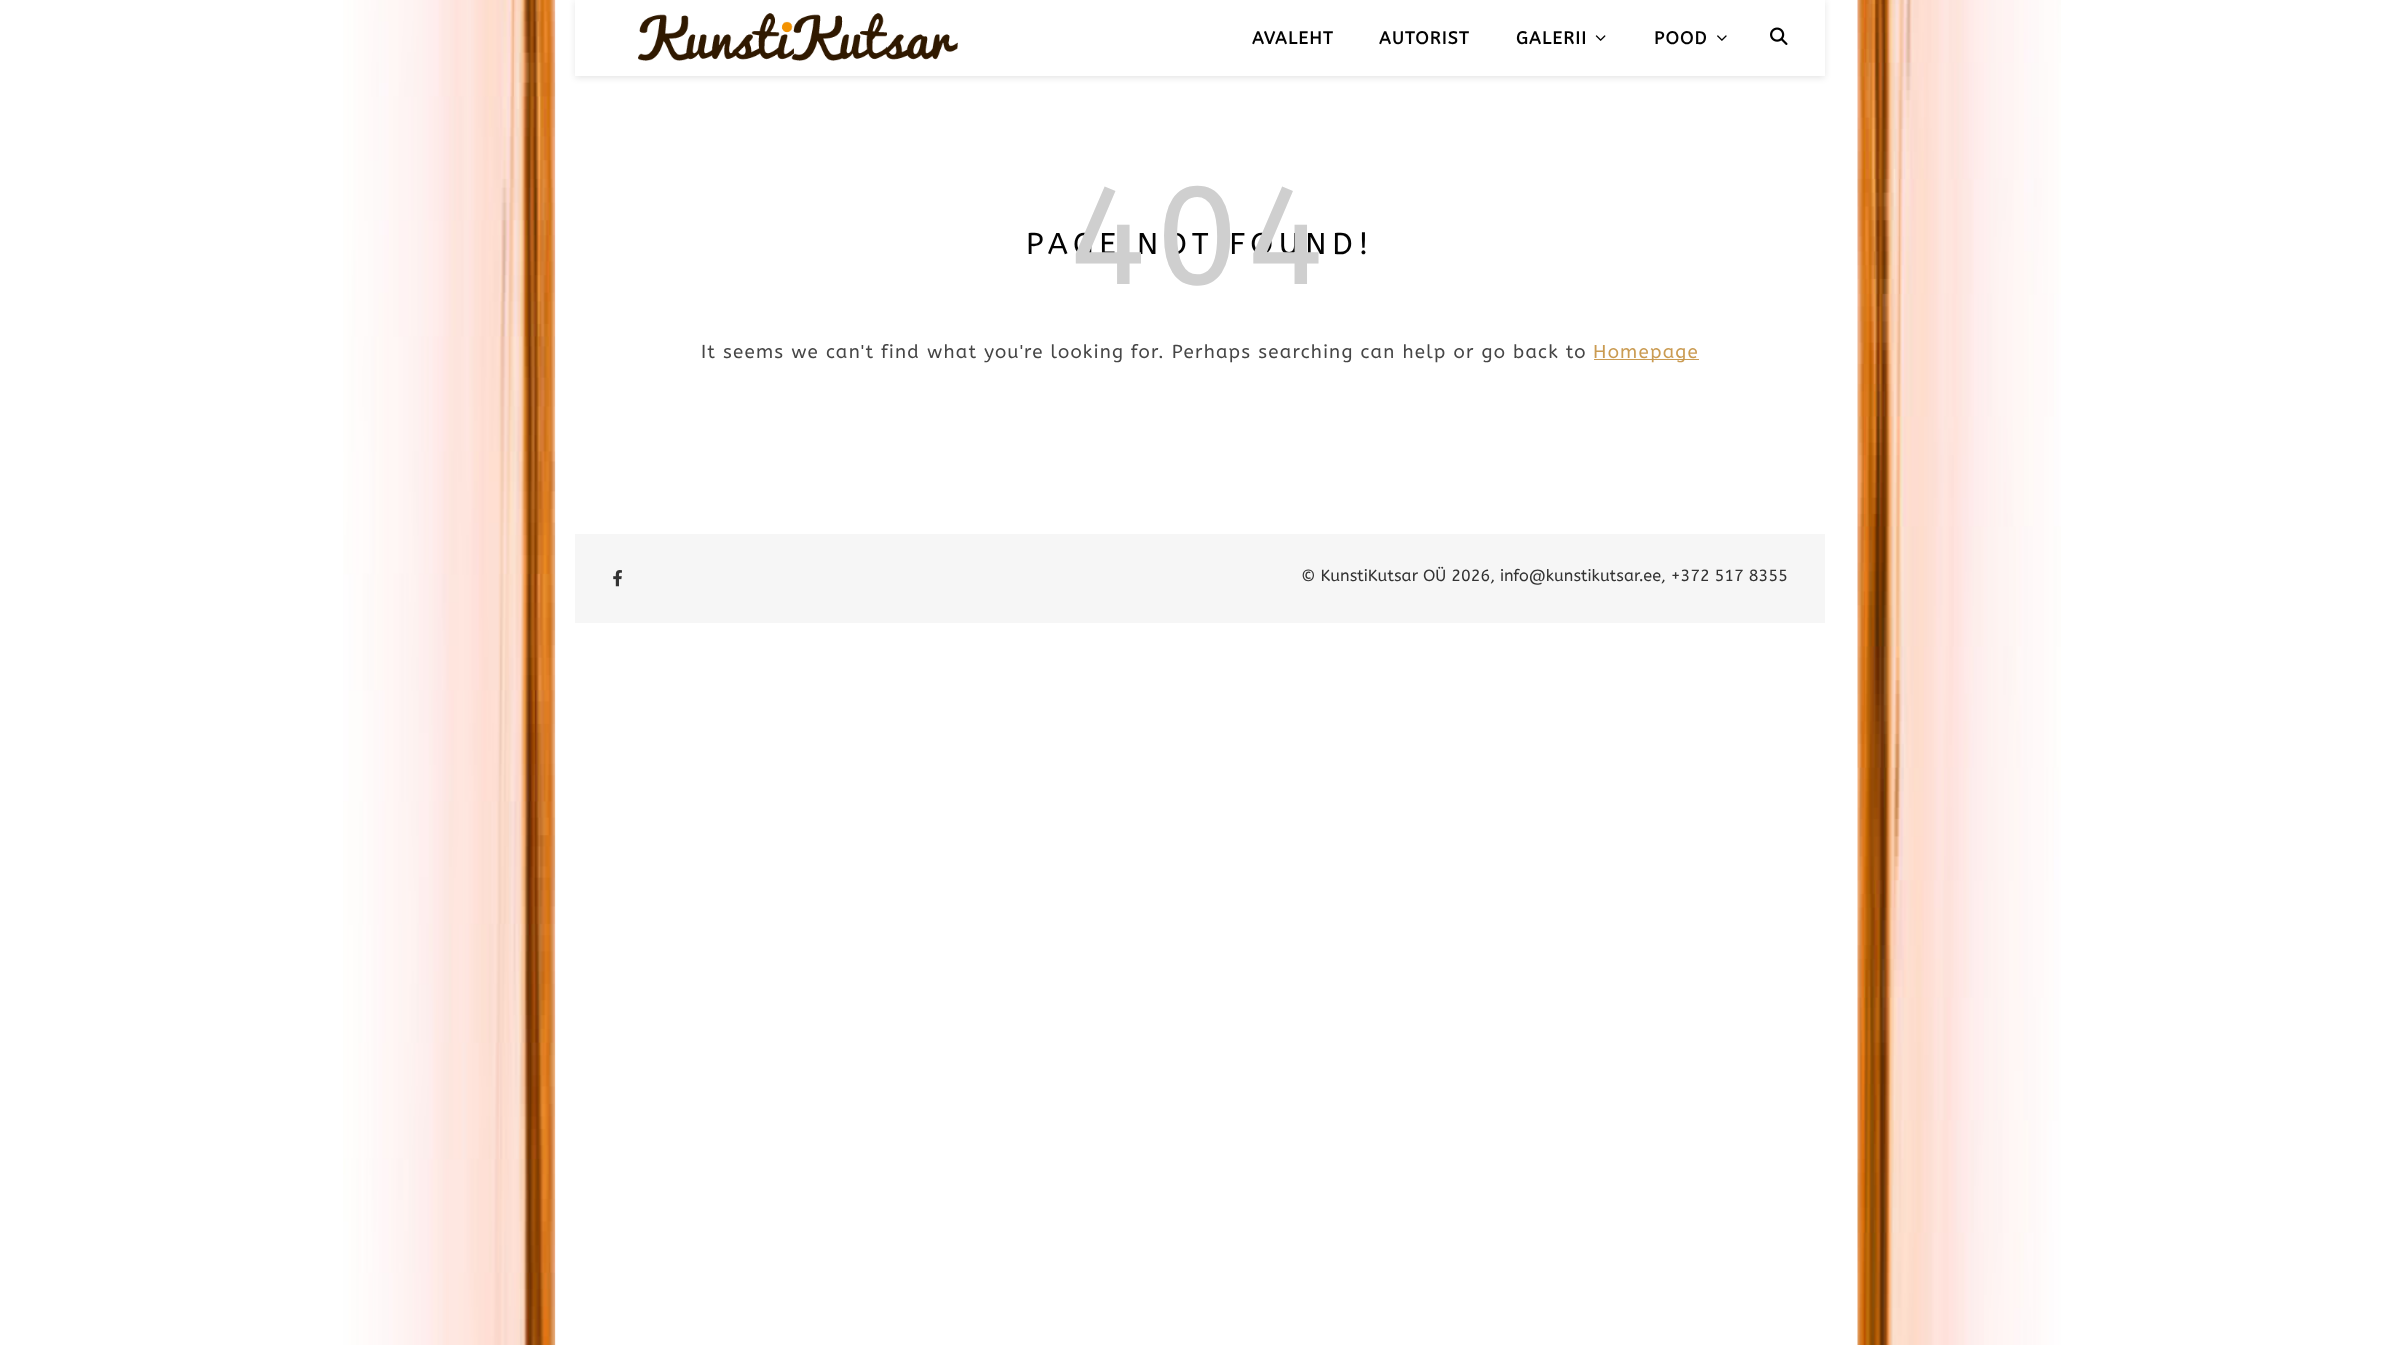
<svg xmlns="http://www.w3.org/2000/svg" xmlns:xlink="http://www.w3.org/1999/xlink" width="2399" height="1345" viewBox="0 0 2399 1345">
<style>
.cls-1{font:bold 17.5px ABeeZee;letter-spacing:1.25px;fill:#030303}
.cls-2{font:30px ABeeZee;letter-spacing:6px;fill:#030303}
.cls-3{font:138px ABeeZee;letter-spacing:6px;fill:#cfcfcf}
.cls-4{font:18.75px ABeeZee;letter-spacing:1.25px;fill:#464646}
.cls-5{font:18.75px ABeeZee;letter-spacing:1.25px;fill:#ca9b52}
.cls-6{font:16.25px ABeeZee;fill:#333333}
</style>
<defs>
<clipPath id="clip1"><path d="M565 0H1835V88H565ZM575 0H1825V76H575Z" clip-rule="evenodd"/></clipPath>
</defs>
<rect width="100%" height="100%" fill="#ffffff"/>
<image xlink:href="image0.png" x="343" y="0" width="1718" height="1345"/>
<g clip-path="url(#clip1)">
<rect fill="#000000" fill-opacity="0.1" filter="blur(3px)" x="575" y="1" width="1250" height="77"/>
</g>
<image xlink:href="image1.png" x="638" y="13" width="320" height="48"/>
<image xlink:href="image2.png" x="1595" y="35" width="11" height="6"/>
<image xlink:href="image3.png" x="1717" y="35" width="10" height="6"/>
<image xlink:href="image4.png" x="1770" y="27" width="18" height="18"/>
<rect fill="#ca9b52" x="1594" y="359" width="105" height="1"/>
<rect fill="#f6f6f6" x="575" y="534" width="1250" height="89"/>
<image xlink:href="image5.png" x="613" y="570" width="9" height="17"/>
<text class="cls-1" x="1252" y="44">AVALEHT</text>
<text class="cls-1" x="1379" y="44">AUTORIST</text>
<text class="cls-1" x="1516" y="44">GALERII</text>
<text class="cls-1" x="1654" y="44">POOD</text>
<text class="cls-2" x="1026" y="254">PAGE NOT FOUND!</text>
<text class="cls-3" x="1067" y="284">404</text>
<text class="cls-4" x="701" y="358">It seems we can't find what you're looking for. Perhaps searching can help or go back to</text>
<text class="cls-5" x="1593" y="358">Homepage</text>
<text class="cls-6" x="1301" y="581">© KunstiKutsar OÜ 2026, info@kunstikutsar.ee, +372 517 8355</text>
</svg>
